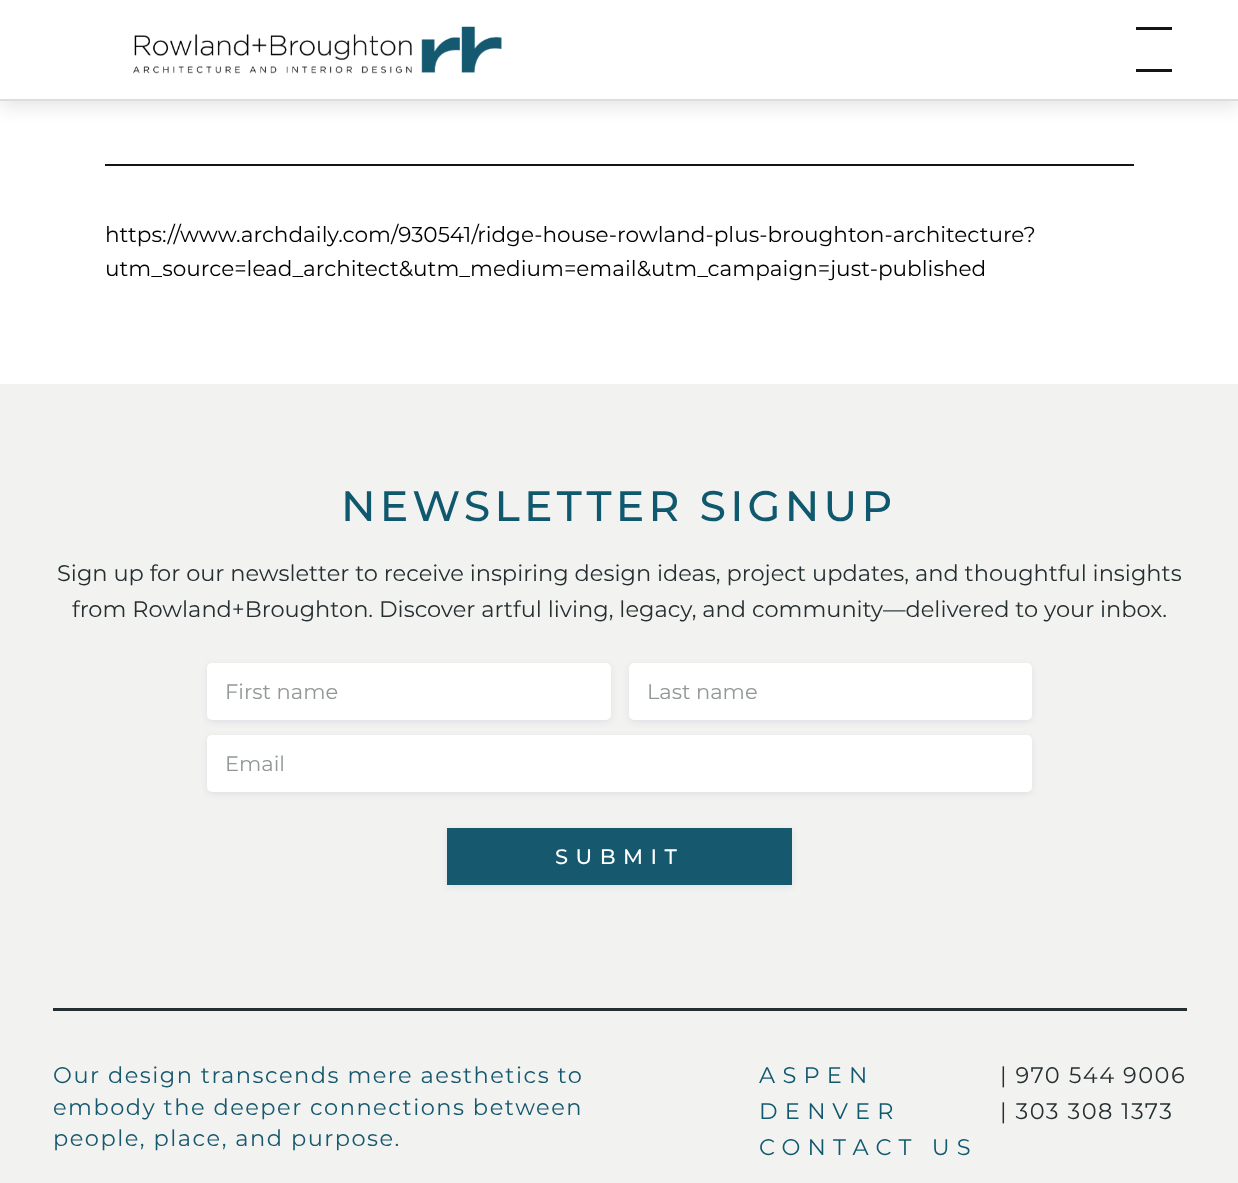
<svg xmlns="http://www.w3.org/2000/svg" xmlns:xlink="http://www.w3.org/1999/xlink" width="1238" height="1183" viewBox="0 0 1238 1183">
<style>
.cls-1{font:21.6px Montserrat;fill:#000000}
.cls-2{font:500 42.6px Montserrat;letter-spacing:4.25px;fill:#10586e}
.cls-3{font:22.5px Montserrat;fill:#252e31}
.cls-4{font:21px Montserrat;fill:#929798}
.cls-5{font:500 21px Montserrat;letter-spacing:7.5px;fill:#ffffff}
.cls-6{font:22.5px Montserrat;letter-spacing:1.5px;fill:#16586e}
.cls-7{font:22.5px Montserrat;letter-spacing:7.25px;fill:#10586e}
.cls-8{font:22.5px Montserrat;letter-spacing:1.5px;fill:#252e31}
</style>
<rect width="100%" height="100%" fill="#ffffff"/>
<rect fill="#000000" fill-opacity="0.1" filter="blur(9px)" x="0" y="6" width="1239" height="101"/>
<rect fill="#ffffff" x="0" y="0" width="1238" height="99"/>
<rect fill="#dddddd" x="0" y="99" width="1238" height="2"/>
<image xlink:href="image0.png" x="133" y="26" width="369" height="48"/>
<rect fill="#161513" x="1136" y="27" width="36" height="3"/>
<rect fill="#161513" x="1136" y="69" width="36" height="3"/>
<rect fill="#161513" x="105" y="164" width="1029" height="2"/>
<rect fill="#f2f2f0" x="0" y="384" width="1238" height="799"/>
<rect fill="#121961" fill-opacity="0.08" filter="blur(3px)" x="207" y="665" width="404" height="57" rx="5"/>
<rect fill="#ffffff" x="207" y="663" width="404" height="57" rx="5"/>
<rect fill="#121961" fill-opacity="0.08" filter="blur(3px)" x="629" y="665" width="403" height="57" rx="5"/>
<rect fill="#ffffff" x="629" y="663" width="403" height="57" rx="5"/>
<rect fill="#121961" fill-opacity="0.08" filter="blur(3px)" x="207" y="737" width="825" height="57" rx="5"/>
<rect fill="#ffffff" x="207" y="735" width="825" height="57" rx="5"/>
<rect fill="#121961" fill-opacity="0.08" filter="blur(3px)" x="447" y="830" width="345" height="57"/>
<rect fill="#16586e" x="447" y="828" width="345" height="57"/>
<rect fill="#252e31" x="53" y="1008" width="1134" height="3"/>
<text class="cls-1"><tspan x="105" y="242">https://www.archdaily.com/930541/ridge-house-rowland-plus-broughton-architecture?</tspan><tspan x="105" y="276">utm_source=lead_architect&amp;utm_medium=email&amp;utm_campaign=just-published</tspan></text>
<text class="cls-2" x="341" y="521">NEWSLETTER SIGNUP</text>
<text class="cls-3" x="57" y="581">Sign up for our newsletter to receive inspiring design ideas, project updates, and thoughtful insights</text>
<text class="cls-3" x="72" y="617">from Rowland+Broughton. Discover artful living, legacy, and community—delivered to your inbox.</text>
<text class="cls-4" x="225" y="699">First name</text>
<text class="cls-4" x="647" y="699">Last name</text>
<text class="cls-4" x="225" y="771">Email</text>
<text class="cls-5" x="555" y="864">SUBMIT</text>
<text class="cls-6"><tspan x="53" y="1083">Our design transcends mere aesthetics to</tspan><tspan x="53" y="1115">embody the deeper connections between</tspan><tspan x="53" y="1146">people, place, and purpose.</tspan></text>
<text class="cls-7"><tspan x="759" y="1083">ASPEN</tspan><tspan x="759" y="1119">DENVER</tspan><tspan x="759" y="1155">CONTACT US</tspan></text>
<text class="cls-8"><tspan x="1000" y="1083">| 970 544 9006</tspan><tspan x="1000" y="1119">| 303 308 1373</tspan></text>
</svg>
